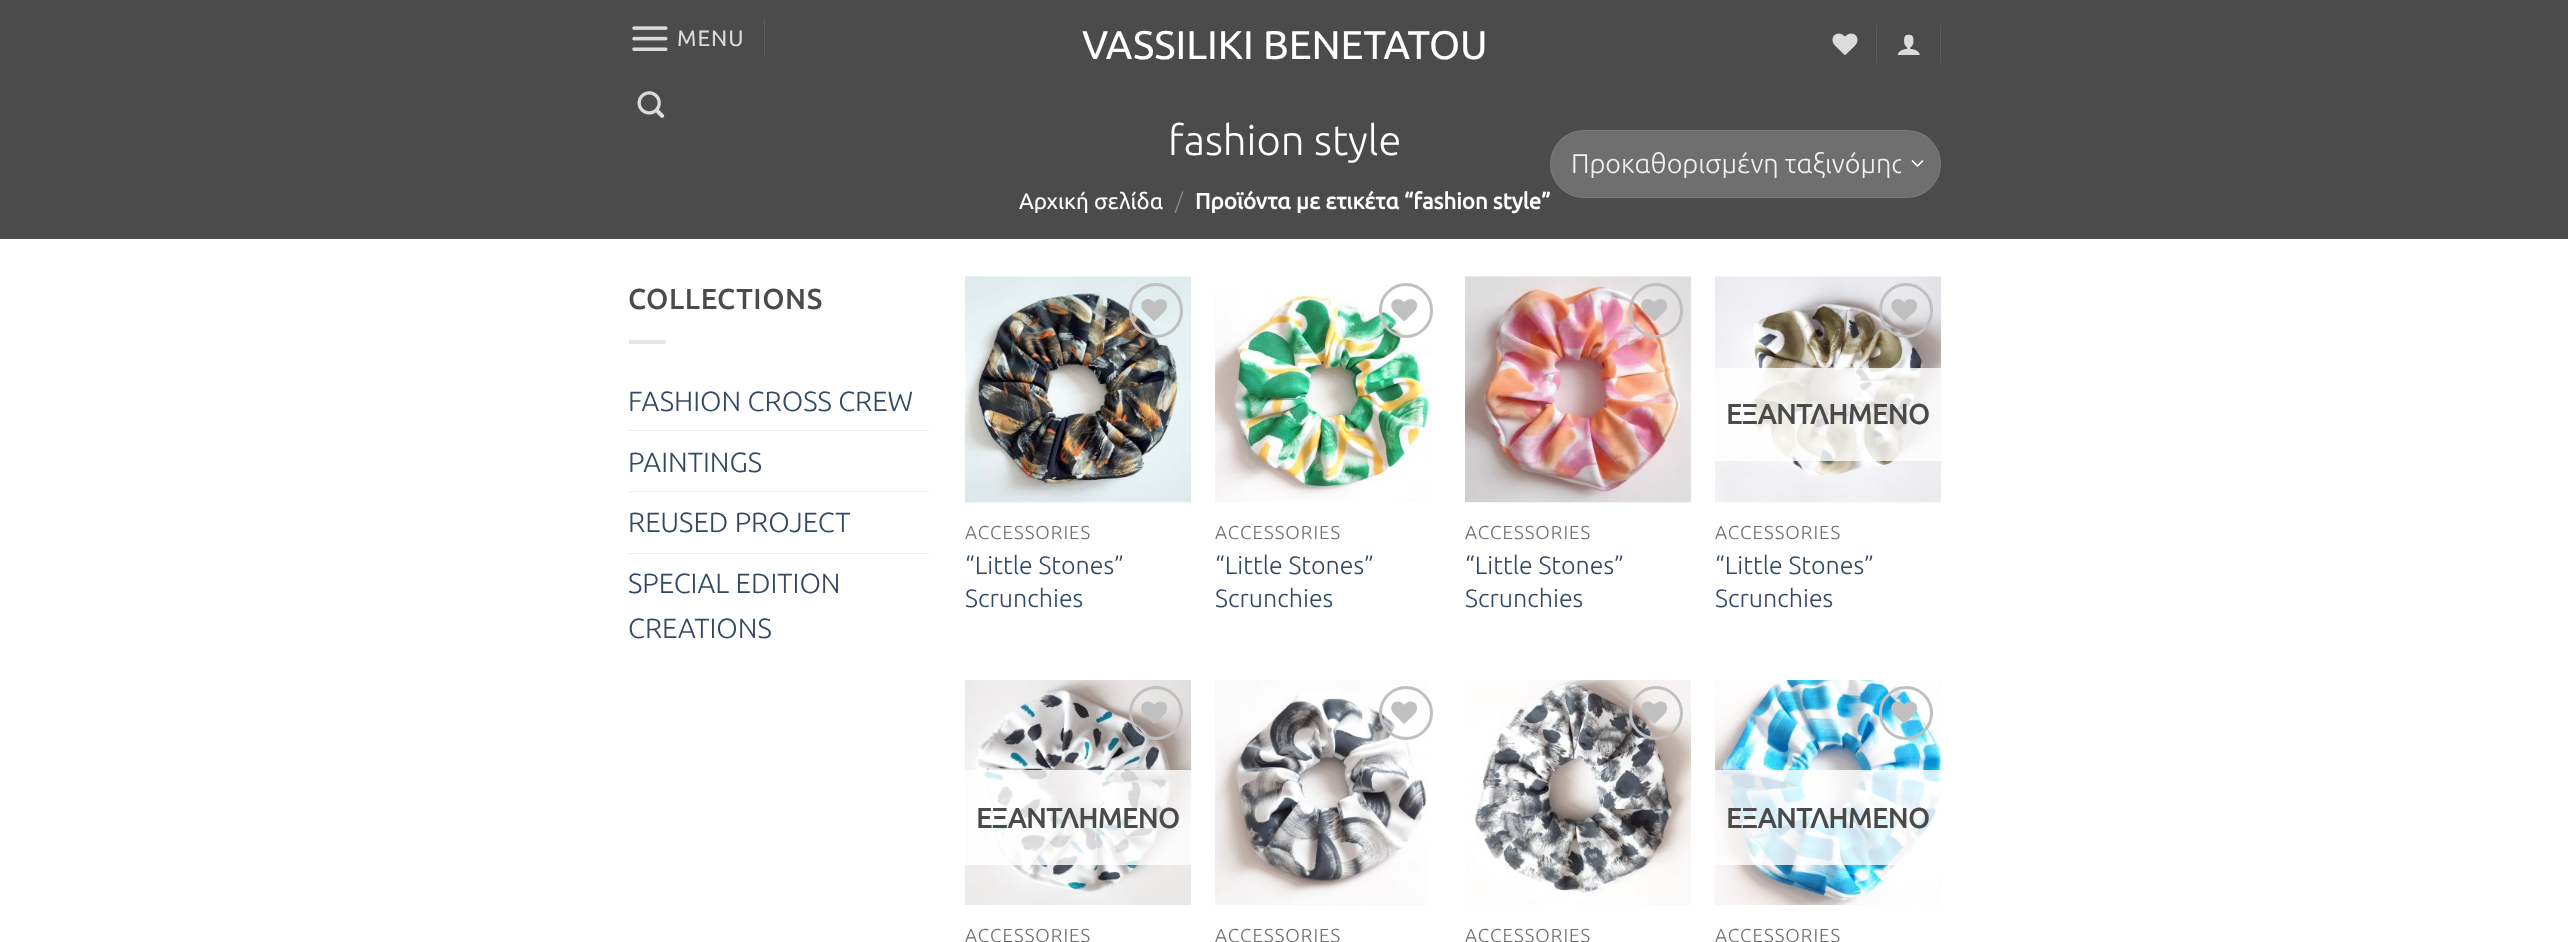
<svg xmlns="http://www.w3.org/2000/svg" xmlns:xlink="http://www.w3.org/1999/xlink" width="2568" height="942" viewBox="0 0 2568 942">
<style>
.cls-1{font:22.25px Ubuntu;letter-spacing:1px;fill:#dbdbdb}
.cls-2{font:40px Ubuntu;fill:#ffffff}
.cls-3{font:300 41.75px Ubuntu;fill:#ffffff}
.cls-4{font:22.25px Ubuntu;fill:#ffffff}
.cls-5{font:300 22.25px Ubuntu;fill:#8a8a8a}
.cls-6{font:bold 22.25px Ubuntu;fill:#ffffff}
.cls-7{font:300 27px Ubuntu;fill:#f1f1f1}
.cls-8{font:bold 27.75px Ubuntu;letter-spacing:1.4px;fill:#4a4a4a}
.cls-9{font:300 27.75px Ubuntu;fill:#334862}
.cls-10{font:300 18.75px Ubuntu;letter-spacing:1px;fill:#6e6e6e}
.cls-11{font:300 25px Ubuntu;fill:#334862}
.cls-12{font:bold 27.75px Ubuntu;fill:#4a4a4a}
</style>
<defs>
<clipPath id="clip1"><rect x="1571" y="141" width="330" height="44"/></clipPath>
</defs>
<rect width="100%" height="100%" fill="#ffffff"/>
<rect fill="#4b4b4b" x="0" y="0" width="2568" height="239"/>
<image xlink:href="image0.png" x="632" y="26" width="36" height="25"/>
<rect fill="#5d5d5d" x="764" y="19" width="1" height="37"/>
<image xlink:href="image1.png" x="637" y="91" width="28" height="27"/>
<image xlink:href="image2.png" x="1832" y="33" width="26" height="22"/>
<rect fill="#5d5d5d" x="1876" y="25" width="1" height="38"/>
<image xlink:href="image3.png" x="1897" y="34" width="23" height="21"/>
<rect fill="#5d5d5d" x="1940" y="25" width="1" height="38"/>
<rect fill="#6f6f6f" x="1550" y="130" width="391" height="68" rx="34"/>
<path fill="none" stroke="#ffffff" stroke-width="1.7" stroke-linecap="round" stroke-linejoin="round" d="M1912.5 161L1917.5 166L1922.5 161"/>
<rect fill="none" stroke="#ffffff" stroke-opacity="0.09" x="1550.5" y="130.5" width="390" height="67" rx="33.5"/>
<rect fill="#e6e6e6" x="629" y="340" width="37" height="4"/>
<rect fill="#ececec" x="629" y="430" width="300" height="1"/>
<rect fill="#ececec" x="629" y="491" width="300" height="1"/>
<rect fill="#ececec" x="629" y="553" width="300" height="1"/>
<image xlink:href="image4.png" x="965" y="276" width="226" height="227"/>
<rect fill="none" stroke="#c0c0c0" stroke-width="3" x="1130.5" y="284.5" width="51" height="52" rx="25.5"/>
<image xlink:href="image5.png" x="1141" y="299" width="27" height="23"/>
<image xlink:href="image7.png" x="1215" y="288" width="217" height="214"/>
<rect fill="none" stroke="#c0c0c0" stroke-width="3" x="1380.5" y="284.5" width="51" height="52" rx="25.5"/>
<image xlink:href="image6.png" x="1391" y="299" width="27" height="23"/>
<image xlink:href="image8.png" x="1465" y="276" width="226" height="227"/>
<rect fill="none" stroke="#c0c0c0" stroke-width="3" x="1630.5" y="284.5" width="51" height="52" rx="25.5"/>
<image xlink:href="image9.png" x="1641" y="299" width="26" height="23"/>
<image xlink:href="image10.png" x="1715" y="276" width="227" height="227"/>
<rect fill="none" stroke="#c0c0c0" stroke-width="3" x="1880.5" y="284.5" width="51" height="52" rx="25.5"/>
<image xlink:href="image11.png" x="1891" y="299" width="27" height="22"/>
<rect fill="#ffffff" fill-opacity="0.81" x="1715" y="368" width="226" height="93"/>
<image xlink:href="image12.png" x="965" y="680" width="227" height="225"/>
<circle fill="none" stroke="#c0c0c0" stroke-width="3" cx="1156" cy="713" r="25.5"/>
<image xlink:href="image13.png" x="1141" y="701" width="26" height="23"/>
<rect fill="#ffffff" fill-opacity="0.81" x="965" y="770" width="226" height="95"/>
<image xlink:href="image14.png" x="1215" y="680" width="213" height="225"/>
<circle fill="none" stroke="#c0c0c0" stroke-width="3" cx="1406" cy="713" r="25.5"/>
<image xlink:href="image15.png" x="1391" y="701" width="27" height="23"/>
<image xlink:href="image16.png" x="1465" y="680" width="226" height="225"/>
<circle fill="none" stroke="#c0c0c0" stroke-width="3" cx="1656" cy="713" r="25.5"/>
<image xlink:href="image17.png" x="1641" y="701" width="27" height="23"/>
<image xlink:href="image18.png" x="1715" y="680" width="227" height="225"/>
<circle fill="none" stroke="#c0c0c0" stroke-width="3" cx="1906" cy="713" r="25.5"/>
<image xlink:href="image19.png" x="1891" y="701" width="27" height="23"/>
<rect fill="#ffffff" fill-opacity="0.81" x="1715" y="770" width="226" height="95"/>
<text class="cls-1" x="677" y="46">MENU</text>
<text class="cls-2" x="1082" y="59">VASSILIKI BENETATOU</text>
<text class="cls-3" x="1168" y="155">fashion style</text>
<text class="cls-4" x="1019" y="209">Αρχική σελίδα</text>
<text class="cls-5" x="1175" y="209">/</text>
<text class="cls-6" x="1195" y="209">Προϊόντα με ετικέτα “fashion style”</text>
<g clip-path="url(#clip1)">
<text class="cls-7" x="1571" y="173">Προκαθορισμένη ταξινόμησ</text>
</g>
<text class="cls-8" x="628" y="309">COLLECTIONS</text>
<text class="cls-9" x="628" y="411">FASHION CROSS CREW</text>
<text class="cls-9" x="628" y="472">PAINTINGS</text>
<text class="cls-9" x="628" y="532">REUSED PROJECT</text>
<text class="cls-9"><tspan x="628" y="593">SPECIAL EDITION</tspan><tspan x="628" y="638">CREATIONS</tspan></text>
<text class="cls-10" x="965" y="539">ACCESSORIES</text>
<text class="cls-11"><tspan x="965" y="574">“Little Stones”</tspan><tspan x="965" y="607">Scrunchies</tspan></text>
<text class="cls-10" x="1215" y="539">ACCESSORIES</text>
<text class="cls-11"><tspan x="1215" y="574">“Little Stones”</tspan><tspan x="1215" y="607">Scrunchies</tspan></text>
<text class="cls-10" x="1465" y="539">ACCESSORIES</text>
<text class="cls-11"><tspan x="1465" y="574">“Little Stones”</tspan><tspan x="1465" y="607">Scrunchies</tspan></text>
<text class="cls-12" x="1726" y="424">ΕΞΑΝΤΛΗΜΕΝΟ</text>
<text class="cls-10" x="1715" y="539">ACCESSORIES</text>
<text class="cls-11"><tspan x="1715" y="574">“Little Stones”</tspan><tspan x="1715" y="607">Scrunchies</tspan></text>
<text class="cls-12" x="976" y="828">ΕΞΑΝΤΛΗΜΕΝΟ</text>
<text class="cls-10" x="965" y="942">ACCESSORIES</text>
<text class="cls-10" x="1215" y="942">ACCESSORIES</text>
<text class="cls-10" x="1465" y="942">ACCESSORIES</text>
<text class="cls-12" x="1726" y="828">ΕΞΑΝΤΛΗΜΕΝΟ</text>
<text class="cls-10" x="1715" y="942">ACCESSORIES</text>
</svg>
